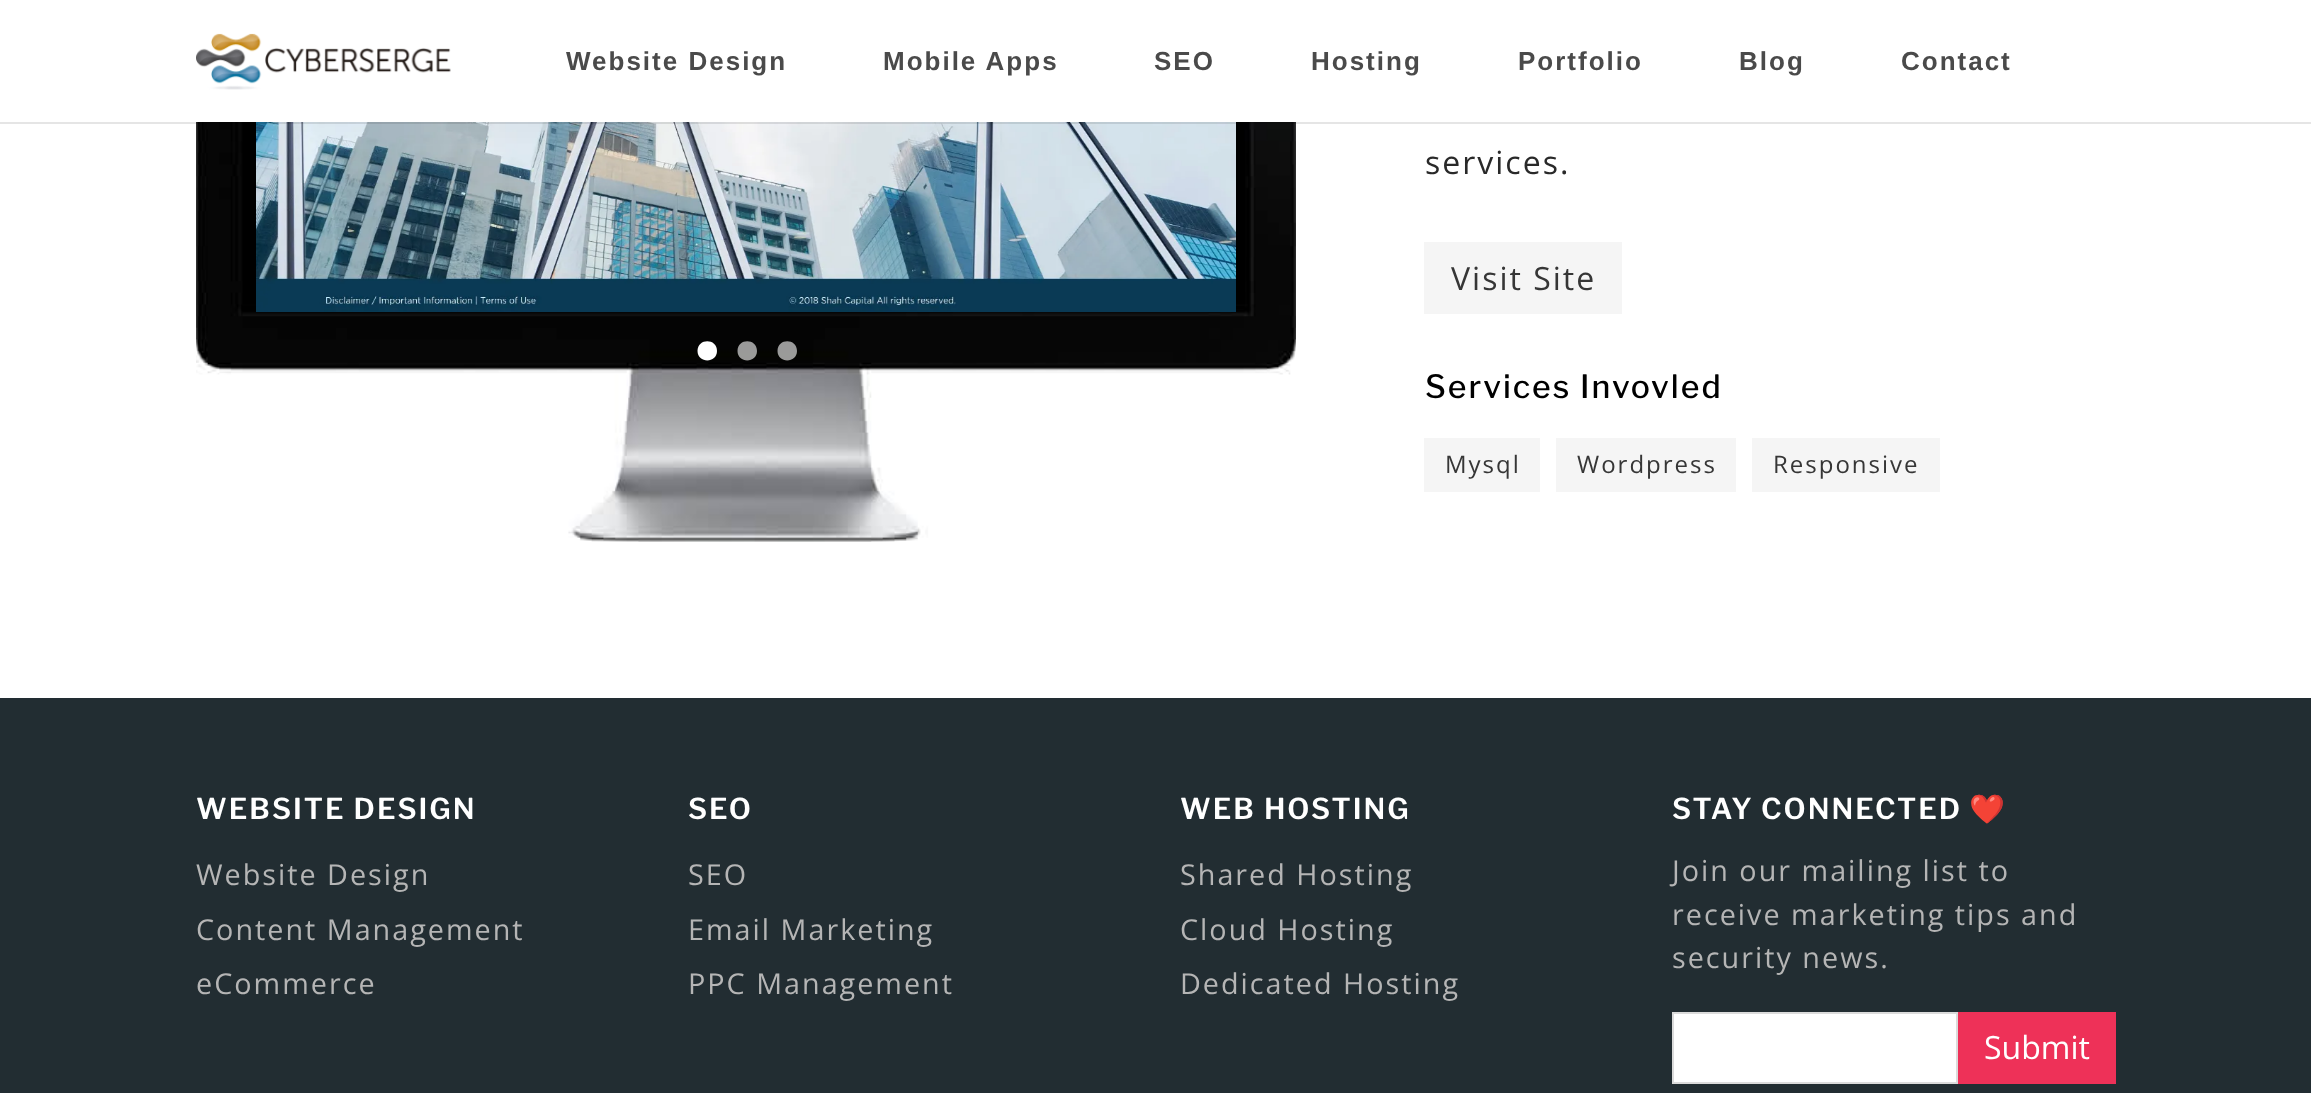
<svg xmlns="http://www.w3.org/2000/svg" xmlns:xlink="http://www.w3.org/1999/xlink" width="2311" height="1093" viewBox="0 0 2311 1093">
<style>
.cls-1{font:bold 26px Liberation Sans;letter-spacing:2px;fill:#4a4a4a}
.cls-2{font:32px Open Sans;letter-spacing:2px;fill:#292929}
.cls-3{font:32px Open Sans;letter-spacing:2px;fill:#363636}
.cls-4{font:500 32px Libre Franklin;letter-spacing:2px;fill:#000000}
.cls-5{font:24px Open Sans;letter-spacing:2px;fill:#363636}
.cls-6{font:600 28.75px Libre Franklin;letter-spacing:2px;fill:#ffffff}
.cls-7{font:28.75px Open Sans;letter-spacing:2px;fill:#b5b5b5}
.cls-8{font:bold 28.75px Noto Color Emoji;letter-spacing:2px;fill:#ffffff}
.cls-9{font:32px Open Sans;fill:#ffffff}
</style>
<rect width="100%" height="100%" fill="#ffffff"/>
<image xlink:href="image1.png" x="196" y="122" width="1100" height="420"/>
<image xlink:href="image2.png" x="256" y="122" width="980" height="190"/>
<rect fill="#000000" fill-opacity="0.1" x="0" y="122" width="2311" height="2"/>
<image xlink:href="image0.png" x="196" y="33" width="255" height="57"/>
<path fill="#ffffff" d="M717 351C717 338 697.5 338 697.5 351C697.5 363.5 717 363.5 717 351Z"/>
<path fill="#ffffff" fill-opacity="0.6" d="M757 351C757 338 737.5 338 737.5 351C737.5 363.5 757 363.5 757 351ZM797 351C797 338 777.5 338 777.5 351C777.5 363.5 797 363.5 797 351Z"/>
<rect fill="#f5f5f5" x="1424" y="242" width="198" height="72"/>
<rect fill="#f5f5f5" x="1424" y="438" width="116" height="54"/>
<rect fill="#f5f5f5" x="1556" y="438" width="180" height="54"/>
<rect fill="#f5f5f5" x="1752" y="438" width="188" height="54"/>
<rect fill="#222d32" x="0" y="698" width="2311" height="395"/>
<rect fill="#ffffff" stroke="#dbdbdb" stroke-width="2" x="1673" y="1013" width="284" height="70"/>
<rect fill="#ee3158" x="1958" y="1012" width="158" height="72"/>
<text class="cls-1" x="566" y="70">Website Design</text>
<text class="cls-1" x="883" y="70">Mobile Apps</text>
<text class="cls-1" x="1154" y="70">SEO</text>
<text class="cls-1" x="1311" y="70">Hosting</text>
<text class="cls-1" x="1518" y="70">Portfolio</text>
<text class="cls-1" x="1739" y="70">Blog</text>
<text class="cls-1" x="1901" y="70">Contact</text>
<text class="cls-2" x="1425" y="174">services.</text>
<text class="cls-3" x="1451" y="290">Visit Site</text>
<text class="cls-4" x="1425" y="398">Services Invovled</text>
<text class="cls-5" x="1445" y="473">Mysql</text>
<text class="cls-5" x="1577" y="473">Wordpress</text>
<text class="cls-5" x="1773" y="473">Responsive</text>
<text class="cls-6" x="196" y="819">WEBSITE DESIGN</text>
<text class="cls-7"><tspan x="196" y="885">Website Design</tspan><tspan x="196" y="940">Content Management</tspan><tspan x="196" y="994">eCommerce</tspan></text>
<text class="cls-6" x="688" y="819">SEO</text>
<text class="cls-7"><tspan x="688" y="885">SEO</tspan><tspan x="688" y="940">Email Marketing</tspan><tspan x="688" y="994">PPC Management</tspan></text>
<text class="cls-6" x="1180" y="819">WEB HOSTING</text>
<text class="cls-7"><tspan x="1180" y="885">Shared Hosting</tspan><tspan x="1180" y="940">Cloud Hosting</tspan><tspan x="1180" y="994">Dedicated Hosting</tspan></text>
<text class="cls-6" x="1672" y="819" word-spacing="-1">STAY CONNECTED</text>
<text class="cls-8" x="1969" y="819">❤️</text>
<text class="cls-7"><tspan x="1672" y="881">Join our mailing list to</tspan><tspan x="1672" y="925">receive marketing tips and</tspan><tspan x="1672" y="968">security news.</tspan></text>
<text class="cls-9" x="1984" y="1059">Submit</text>
</svg>
